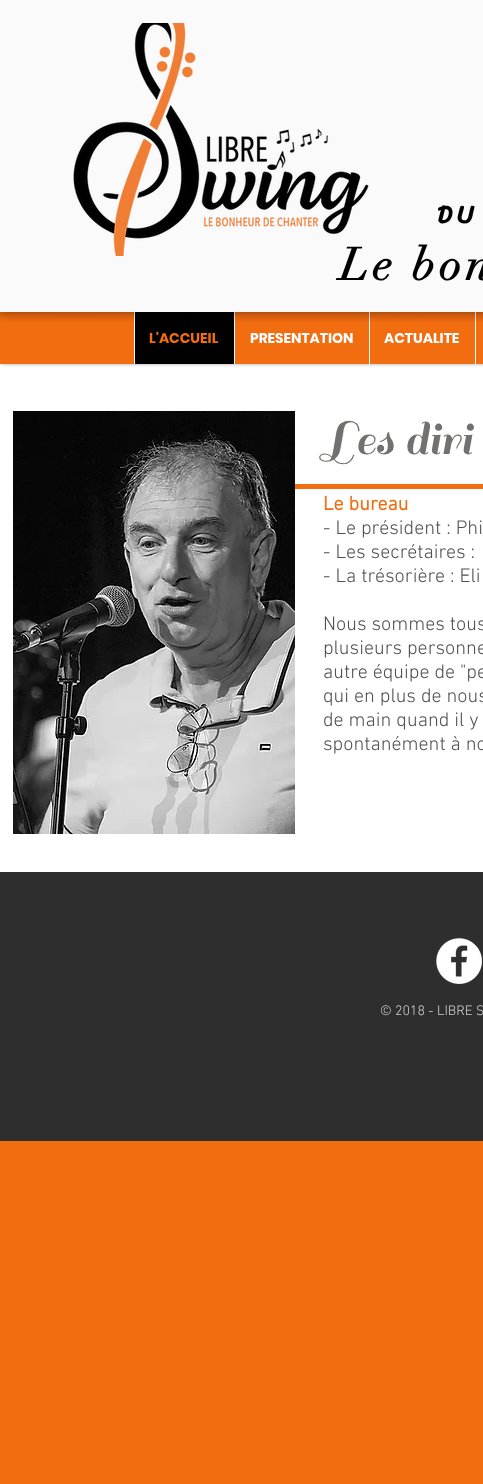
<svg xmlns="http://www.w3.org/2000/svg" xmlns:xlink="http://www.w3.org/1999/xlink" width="483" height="1484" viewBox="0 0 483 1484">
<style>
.cls-1{font:bold 25px Sriracha;letter-spacing:5px;fill:#000000}
.cls-2{font:bold 45px didot;letter-spacing:4.5px;fill:#000000}
.cls-3{font:bold 14px Poppins;fill:#f26d0f}
.cls-4{font:bold 14px Poppins;fill:#ffffff}
.cls-5{font:50px Sail;fill:#72716f}
.cls-6{font:bold 20px 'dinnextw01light';fill:#f26d0f}
.cls-7{font:300 20px 'dinnextw01light';fill:#505052}
.cls-8{font:300 14px 'dinnextw01light';fill:#d0cfcd}
</style>
<rect width="100%" height="100%" fill="#f26d0f"/>
<rect fill="#ffffff" x="0" y="364" width="483" height="508"/>
<rect fill="#000000" fill-opacity="0.6" filter="blur(2px)" x="1" y="311" width="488" height="52"/>
<rect fill="#fafafa" x="0" y="0" width="483" height="312"/>
<rect fill="#f26d0f" x="0" y="312" width="483" height="52"/>
<image xlink:href="image0.png" x="0" y="312" width="35" height="10"/>
<rect fill="#000000" x="135" y="312" width="99" height="52"/>
<rect fill="#ffffff" x="134" y="312" width="1" height="52"/>
<rect fill="#ffffff" x="234" y="312" width="1" height="52"/>
<rect fill="#ffffff" x="369" y="312" width="1" height="52"/>
<rect fill="#ffffff" x="475" y="312" width="1" height="52"/>
<image xlink:href="image1.png" x="35" y="312" width="448" height="10"/>
<image xlink:href="image2.png" x="73" y="23" width="296" height="233"/>
<image xlink:href="image3.png" x="13" y="411" width="282" height="423"/>
<rect fill="#f26d0f" x="295" y="484" width="188" height="5"/>
<rect fill="#2f2e2e" x="0" y="872" width="483" height="269"/>
<image xlink:href="image4.png" x="436" y="938" width="46" height="46"/>
<text class="cls-1" x="437" y="223">DU</text>
<text class="cls-2" x="340" y="280">Le bon</text>
<text class="cls-3" x="149" y="343">L'ACCUEIL</text>
<text class="cls-4" x="250" y="343">PRESENTATION</text>
<text class="cls-4" x="384" y="343">ACTUALITE</text>
<text class="cls-5" x="323" y="454">Les diri</text>
<text class="cls-6" x="323" y="510">Le bureau</text>
<text class="cls-7"><tspan x="323" y="534">- Le président : Phi</tspan><tspan x="323" y="558">- Les secrétaires :</tspan><tspan x="323" y="582">- La trésorière : Eli</tspan></text>
<text class="cls-7"><tspan x="323" y="630">Nous sommes tous</tspan><tspan x="323" y="654">plusieurs personne</tspan><tspan x="323" y="678">autre équipe de "pe</tspan><tspan x="323" y="702">qui en plus de nous</tspan><tspan x="323" y="726">de main quand il y</tspan><tspan x="323" y="750">spontanément à no</tspan></text>
<text class="cls-8" x="380" y="1015">© 2018 - LIBRE S</text>
</svg>
